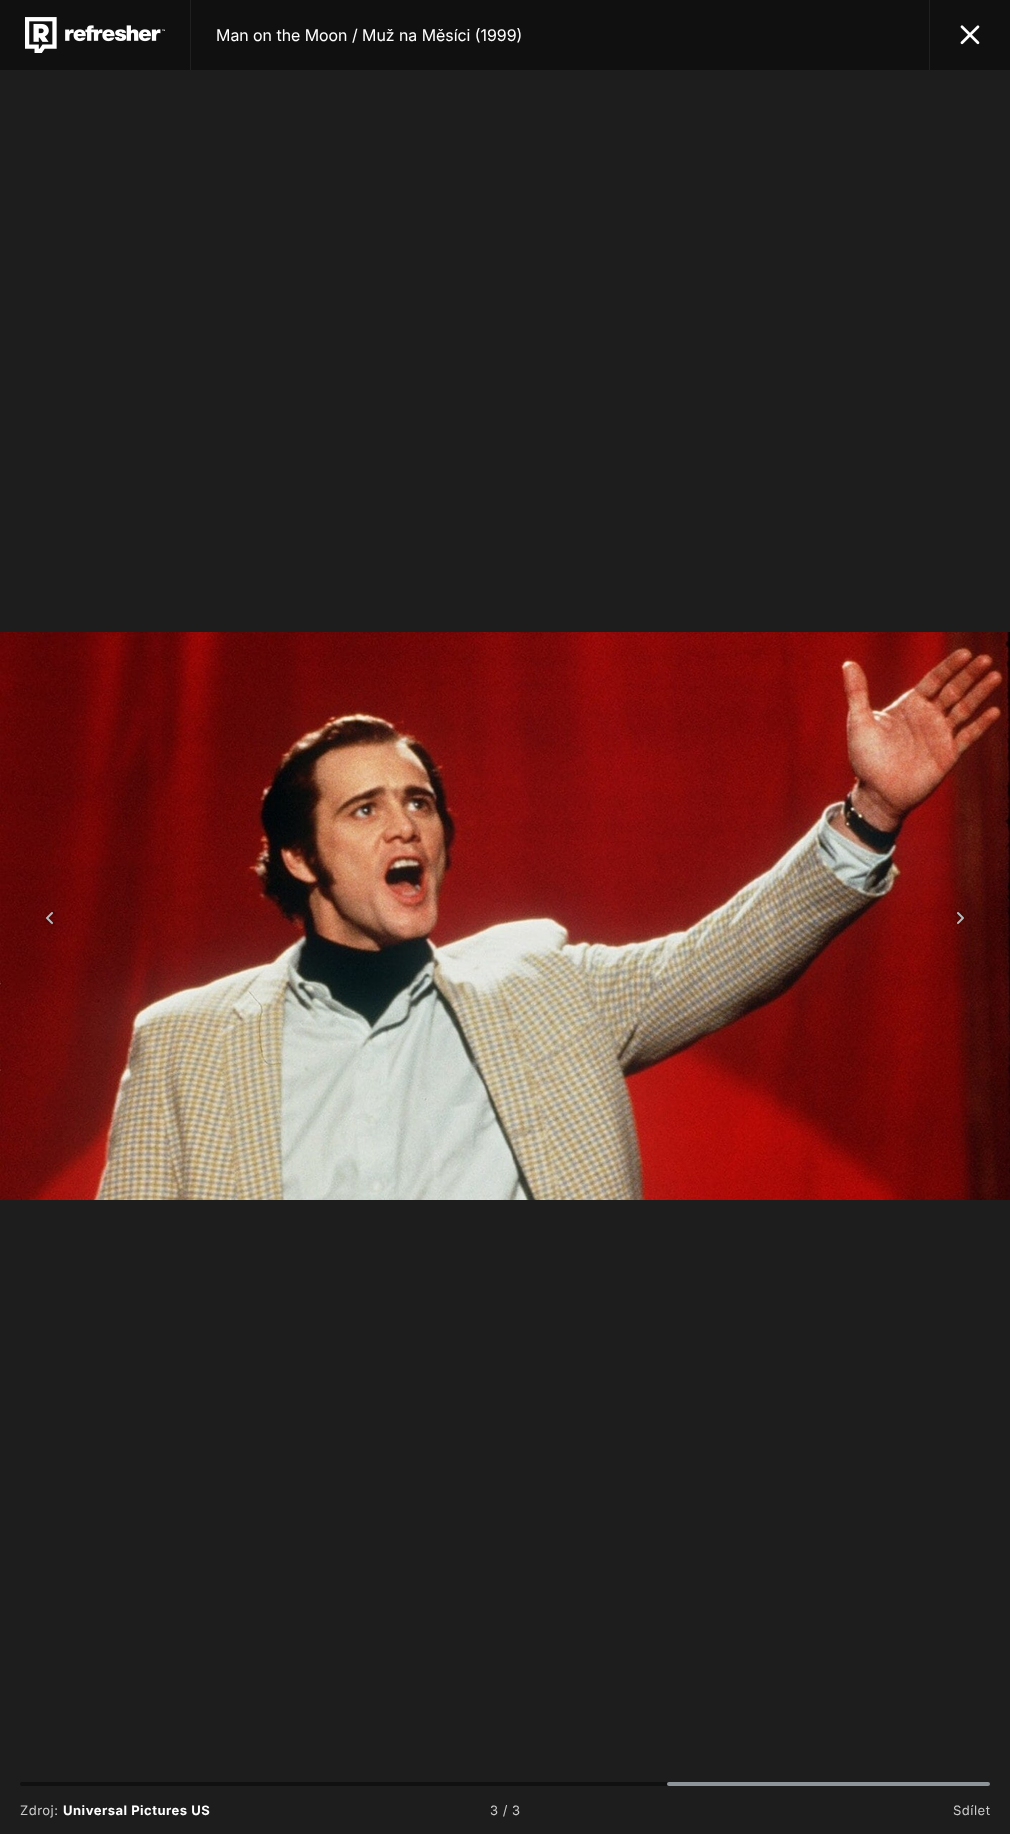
<svg xmlns="http://www.w3.org/2000/svg" xmlns:xlink="http://www.w3.org/1999/xlink" width="1010" height="1834" viewBox="0 0 1010 1834">
<style>
.cls-1{font:16px Inter;fill:#ffffff}
.cls-2{font:13px 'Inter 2';letter-spacing:0.5px;fill:#cccccc}
.cls-3{font:bold 13px Inter;letter-spacing:0.5px;fill:#ffffff}
</style>
<rect width="100%" height="100%" fill="#1d1d1d"/>
<rect fill="#101010" x="0" y="0" width="1010" height="70"/>
<image xlink:href="image0.png" x="25" y="17" width="140" height="36"/>
<rect fill="#202020" x="190" y="0" width="1" height="70"/>
<image xlink:href="image1.png" x="960" y="25" width="20" height="20"/>
<rect fill="#202020" x="929" y="0" width="1" height="70"/>
<image xlink:href="image2.png" x="0" y="632" width="1010" height="568"/>
<image xlink:href="image3.png" x="46" y="911" width="9" height="13"/>
<image xlink:href="image4.png" x="956" y="911" width="9" height="13"/>
<rect fill="#101010" x="20" y="1782" width="970" height="4" rx="2"/>
<rect fill="#8e959a" x="667" y="1782" width="323" height="4" rx="2"/>
<text class="cls-1" x="216" y="41">Man on the Moon / Muž na Měsíci (1999)</text>
<text class="cls-2" x="20" y="1815">Zdroj:</text>
<text class="cls-3" x="63" y="1815">Universal Pictures US</text>
<text class="cls-2" x="490" y="1815">3 / 3</text>
<text class="cls-2" x="953" y="1815">Sdílet</text>
</svg>
